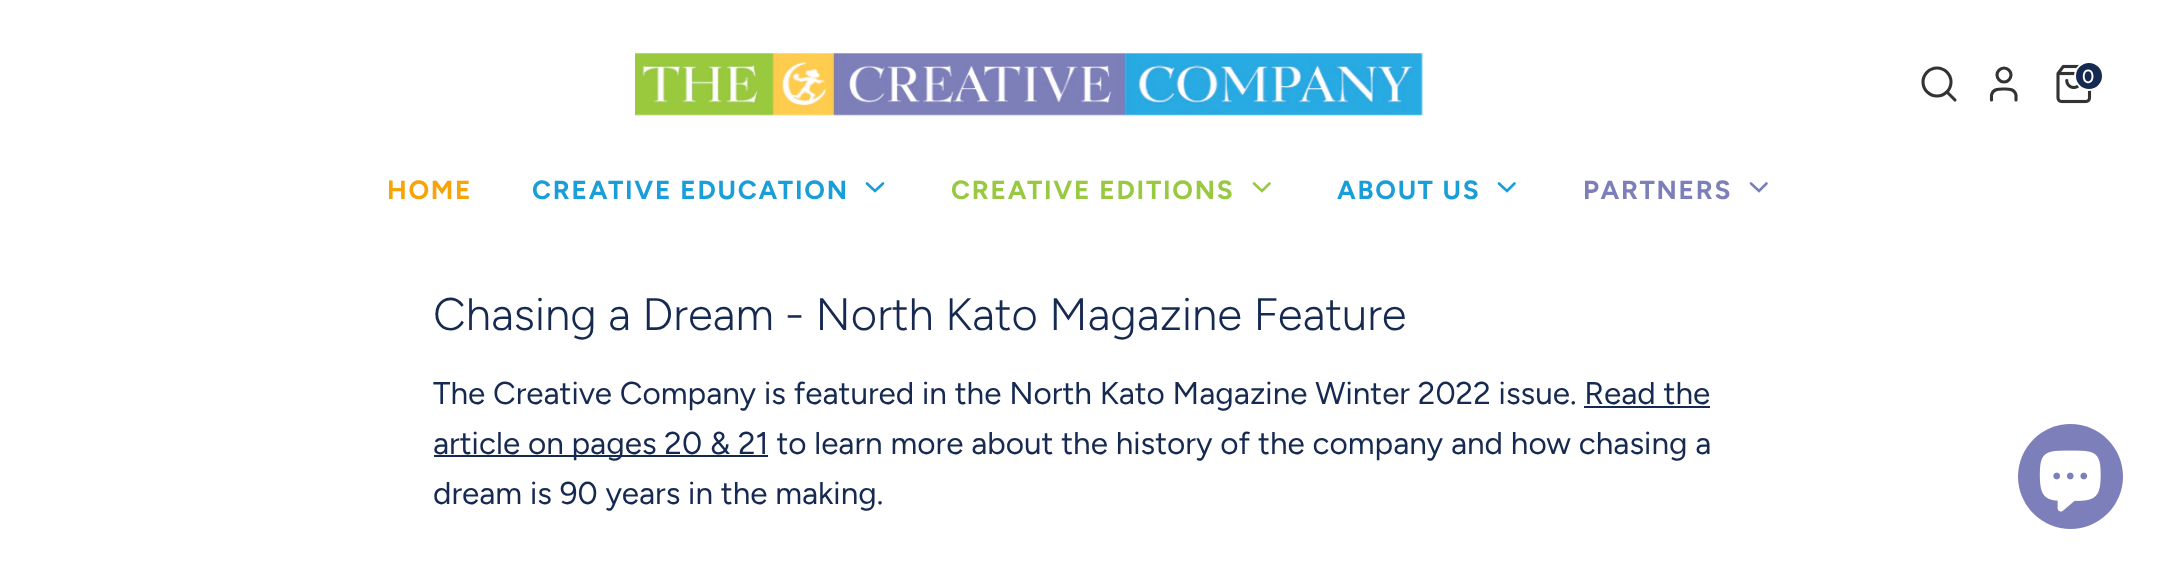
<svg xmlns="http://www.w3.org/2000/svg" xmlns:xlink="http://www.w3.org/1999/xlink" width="2161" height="564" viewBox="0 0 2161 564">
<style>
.cls-1{font:500 19px Figtree;fill:#ffffff}
.cls-2{font:bold 26.25px Figtree;letter-spacing:1.75px;fill:#f7a30a}
.cls-3{font:bold 26.25px Figtree;letter-spacing:1.75px;fill:#199ed9}
.cls-4{font:bold 26.25px Figtree;letter-spacing:1.75px;fill:#99c941}
.cls-5{font:bold 26.25px Figtree;letter-spacing:1.75px;fill:#7d7fba}
.cls-6{font:300 45.5px Figtree;fill:#162950}
.cls-7{font:31.5px Figtree;fill:#162950}
</style>
<rect width="100%" height="100%" fill="#ffffff"/>
<image xlink:href="image0.png" x="635" y="53" width="789" height="63"/>
<circle fill="none" stroke="#333333" stroke-width="3.1" cx="1937" cy="82" r="14"/>
<path fill="none" stroke="#333333" stroke-width="3.1" stroke-linecap="round" stroke-linejoin="round" d="M1955 100L1947 92"/>
<path fill="none" stroke="#333333" stroke-width="3.1" stroke-linecap="round" stroke-linejoin="round" d="M2016 100V95C2014.5 88.5 2008.5 89 2004 89C1999 89 1993 88.5 1991.5 95V100"/>
<circle fill="none" stroke="#333333" stroke-width="3.1" cx="2004" cy="75" r="7"/>
<image xlink:href="image1.png" x="2056" y="64" width="36" height="40"/>
<circle fill="#162950" stroke="#ffffff" stroke-width="2" cx="2089" cy="76" r="14"/>
<path fill="none" stroke="#199ed9" stroke-width="2.6" stroke-linecap="round" d="M867 183.5L875 191L883 183.5"/>
<path fill="none" stroke="#99c941" stroke-width="2.6" stroke-linecap="round" d="M1254 183.5L1262 191L1269.5 183.5"/>
<path fill="none" stroke="#199ed9" stroke-width="2.6" stroke-linecap="round" d="M1499 183.5L1507 191L1514.5 183.5"/>
<path fill="none" stroke="#7d7fba" stroke-width="2.6" stroke-linecap="round" d="M1751 183.5L1759 191L1766.5 183.5"/>
<rect fill="#162950" x="1584" y="406" width="126" height="2"/>
<rect fill="#162950" x="434" y="455" width="334" height="2"/>
<circle fill="#7d7fba" cx="2070.5" cy="476.5" r="52.5"/>
<image xlink:href="image2.png" x="2039" y="450" width="62" height="62"/>
<text class="cls-1" x="2082" y="83">0</text>
<text class="cls-2" x="387" y="199">HOME</text>
<text class="cls-3" x="532" y="199">CREATIVE EDUCATION</text>
<text class="cls-4" x="951" y="199">CREATIVE EDITIONS</text>
<text class="cls-3" x="1337" y="199">ABOUT US</text>
<text class="cls-5" x="1583" y="199">PARTNERS</text>
<text class="cls-6" x="433" y="330">Chasing a Dream - North Kato Magazine Feature</text>
<text class="cls-7"><tspan x="433" y="404">The Creative Company is featured in the North Kato Magazine Winter 2022 issue. Read the</tspan><tspan x="433" y="454">article on pages 20 &amp; 21 to learn more about the history of the company and how chasing a</tspan><tspan x="433" y="504">dream is 90 years in the making.</tspan></text>
</svg>
